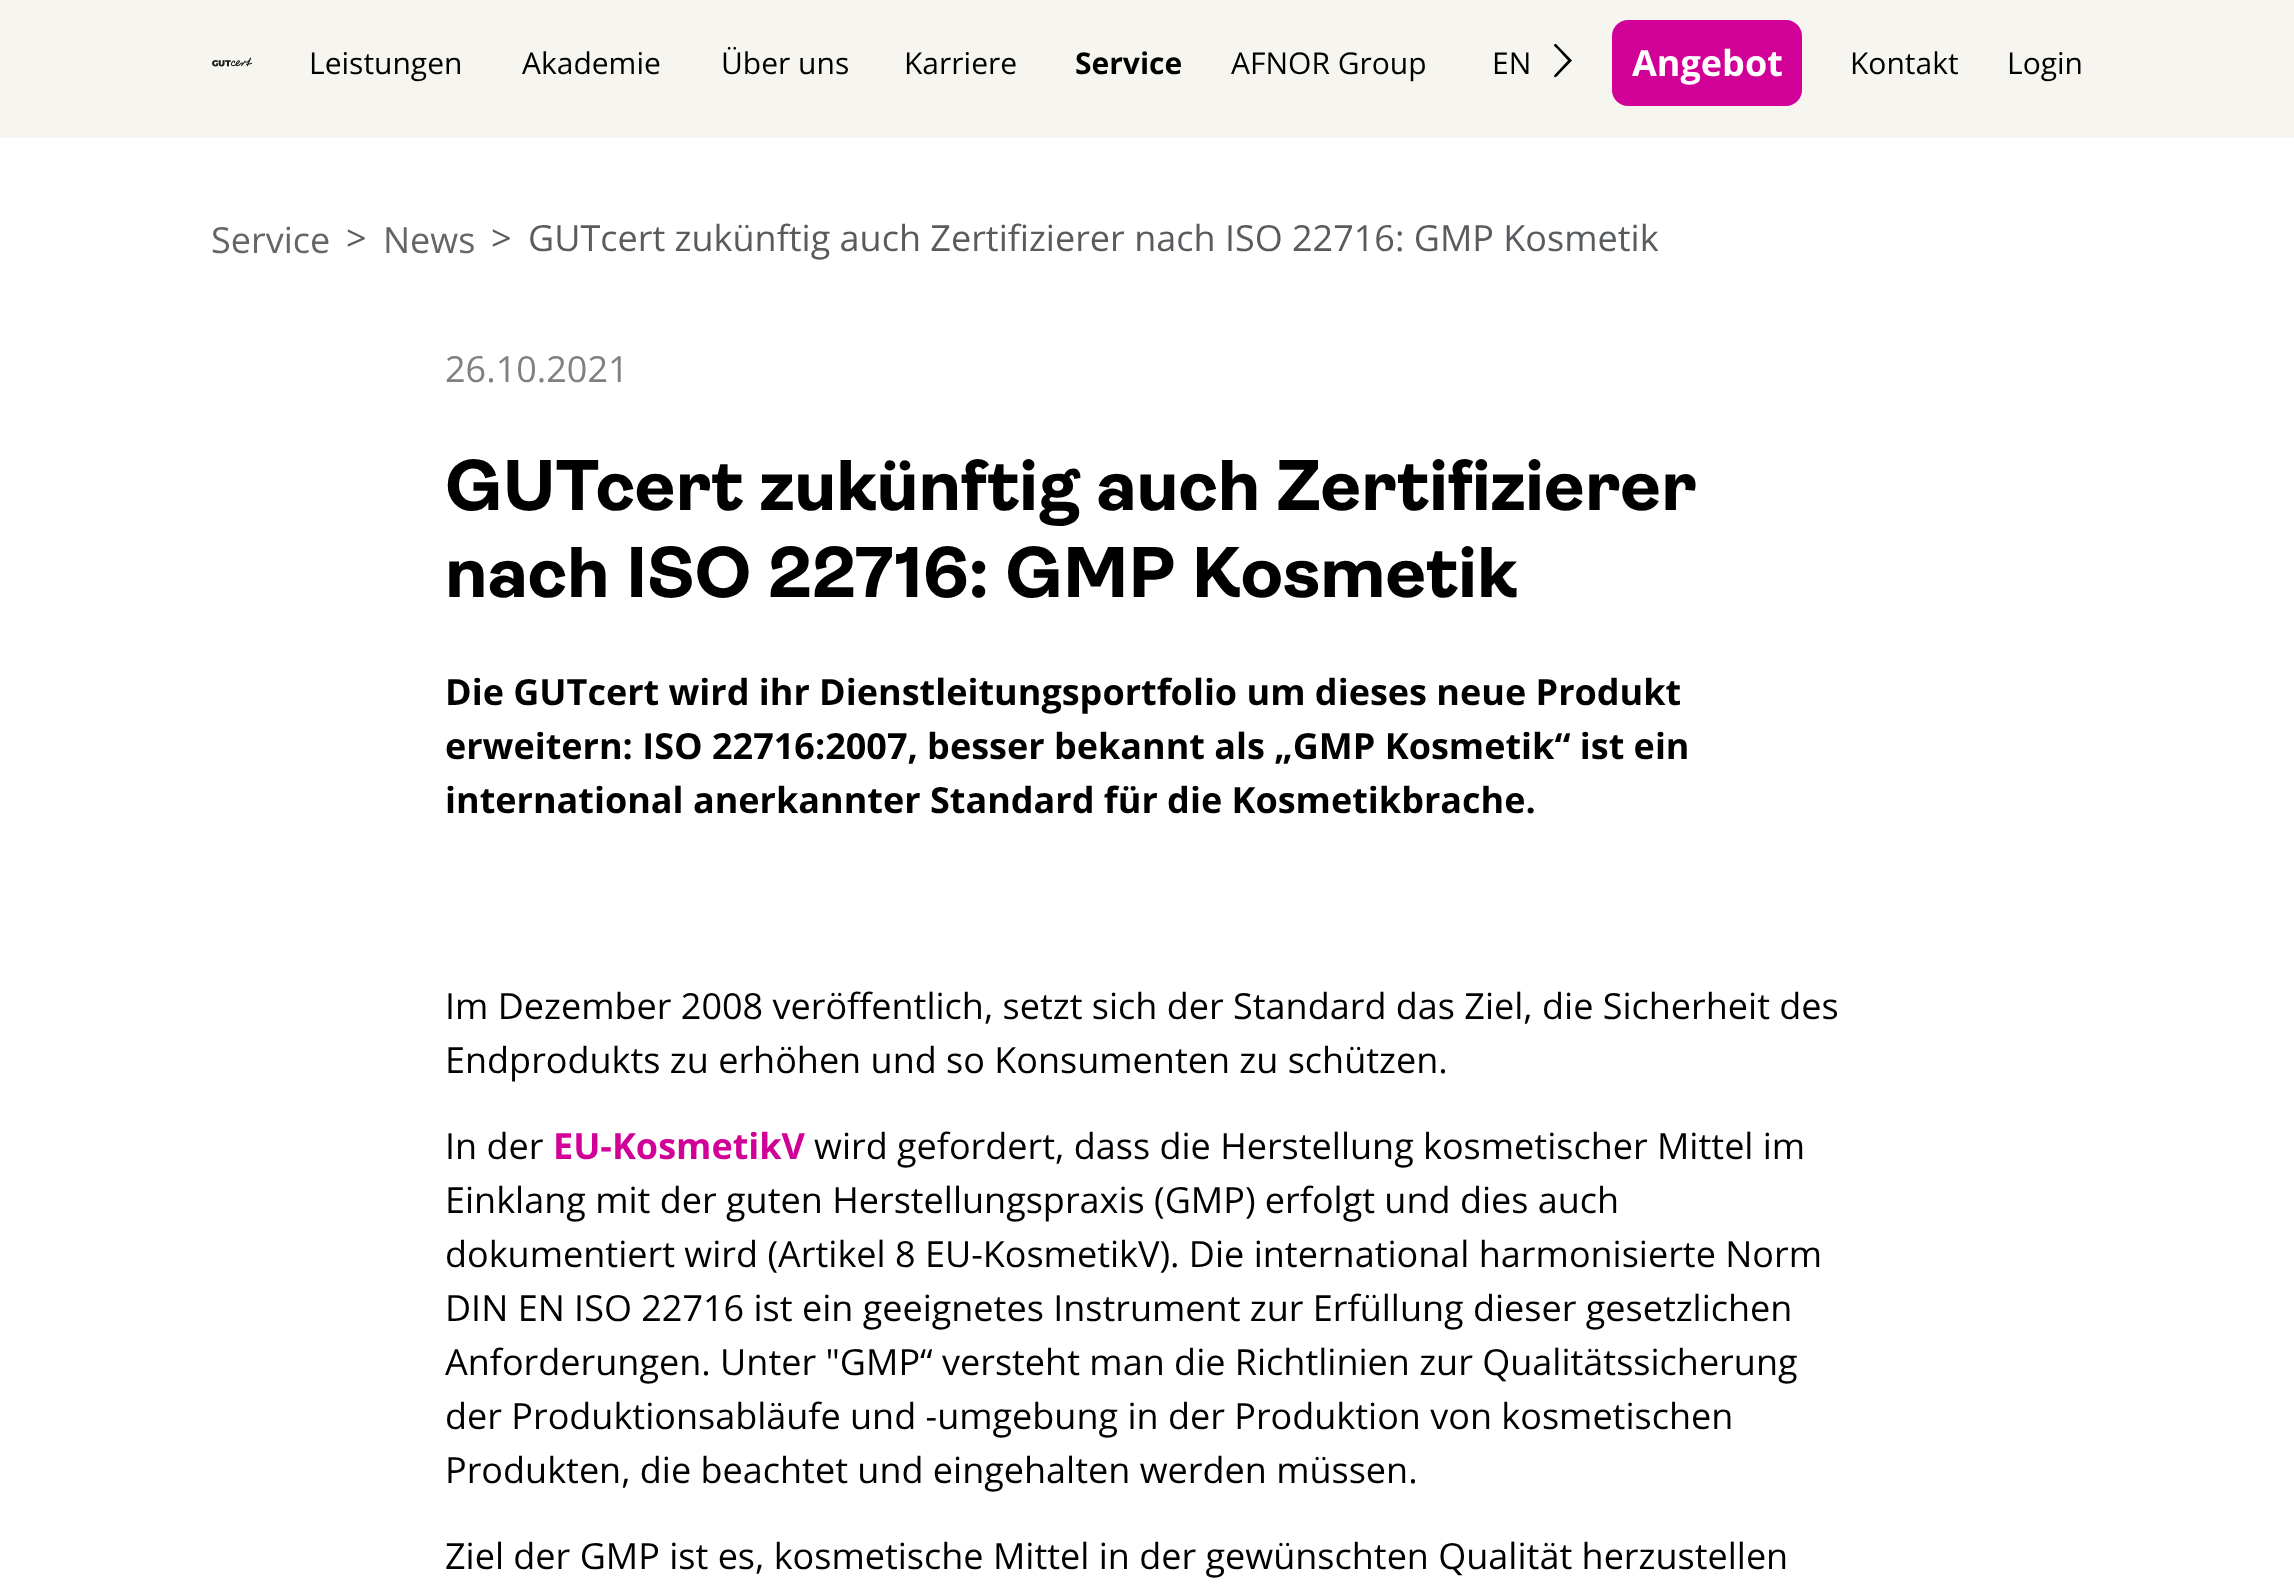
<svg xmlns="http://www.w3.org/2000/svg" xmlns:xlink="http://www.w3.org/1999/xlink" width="2294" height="1594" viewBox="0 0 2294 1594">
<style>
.cls-1{font:30px Open Sans;fill:#000000}
.cls-2{font:bold 30px Open Sans;fill:#000000}
.cls-3{font:bold 36px Open Sans;fill:#ffffff}
.cls-4{font:36px Open Sans;fill:#666666}
.cls-5{font:36px Open Sans;fill:#595c5f}
.cls-6{font:36px Open Sans;fill:#808080}
.cls-7{font:bold 72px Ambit;fill:#000000}
.cls-8{font:bold 36px Open Sans;fill:#000000}
.cls-9{font:36px Open Sans;fill:#000000}
.cls-10{font:bold 36px Open Sans;fill:#d10096}
</style>
<rect width="100%" height="100%" fill="#ffffff"/>
<rect fill="#f6f5f0" x="0" y="0" width="2294" height="138"/>
<image xlink:href="image0.png" x="212" y="57" width="40" height="10"/>
<path fill="#000000" d="M1554.5 75L1568 60.5L1557 48.5C1556.5 48 1552 45 1555 44H1556L1572 60.5L1571.5 61L1559 74C1558.5 74.5 1555 79.5 1554 76Z"/>
<rect fill="#d10096" x="1612" y="20" width="190" height="86" rx="16"/>
<text class="cls-1" x="309" y="74">Leistungen</text>
<text class="cls-1" x="522" y="74">Akademie</text>
<text class="cls-1" x="721" y="74">Über uns</text>
<text class="cls-1" x="904" y="74">Karriere</text>
<text class="cls-2" x="1075" y="74">Service</text>
<text class="cls-1" x="1231" y="74">AFNOR Group</text>
<text class="cls-1" x="1492" y="74">EN</text>
<text class="cls-3" x="1632" y="76">Angebot</text>
<text class="cls-1" x="1850" y="74">Kontakt</text>
<text class="cls-1" x="2007" y="74">Login</text>
<text class="cls-4" x="211" y="253">Service</text>
<text class="cls-5" x="346" y="251">&gt;</text>
<text class="cls-4" x="383" y="253">News</text>
<text class="cls-5" x="491" y="251">&gt;</text>
<text class="cls-5" x="528" y="251">GUTcert zukünftig auch Zertifizierer nach ISO 22716: GMP Kosmetik</text>
<text class="cls-6" x="445" y="382">26.10.2021</text>
<text class="cls-7"><tspan x="445" y="510">GUTcert zukünftig auch Zertifizierer</tspan><tspan x="445" y="597">nach ISO 22716: GMP Kosmetik</tspan></text>
<text class="cls-8"><tspan x="445" y="705">Die GUTcert wird ihr Dienstleitungsportfolio um dieses neue Produkt</tspan><tspan x="445" y="759">erweitern: ISO 22716:2007, besser bekannt als „GMP Kosmetik“ ist ein</tspan><tspan x="445" y="813">international anerkannter Standard für die Kosmetikbrache.</tspan></text>
<text class="cls-9"><tspan x="445" y="1019">Im Dezember 2008 veröffentlich, setzt sich der Standard das Ziel, die Sicherheit des</tspan><tspan x="445" y="1073">Endprodukts zu erhöhen und so Konsumenten zu schützen.</tspan></text>
<text class="cls-9" x="445" y="1159">In der</text>
<text class="cls-10" x="553" y="1159">EU-KosmetikV</text>
<text class="cls-9" x="814" y="1159">wird gefordert, dass die Herstellung kosmetischer Mittel im</text>
<text class="cls-9"><tspan x="445" y="1213">Einklang mit der guten Herstellungspraxis (GMP) erfolgt und dies auch</tspan><tspan x="445" y="1267">dokumentiert wird (Artikel 8 EU-KosmetikV). Die international harmonisierte Norm</tspan><tspan x="445" y="1321">DIN EN ISO 22716 ist ein geeignetes Instrument zur Erfüllung dieser gesetzlichen</tspan><tspan x="445" y="1375">Anforderungen. Unter "GMP“ versteht man die Richtlinien zur Qualitätssicherung</tspan><tspan x="445" y="1429">der Produktionsabläufe und -umgebung in der Produktion von kosmetischen</tspan><tspan x="445" y="1483">Produkten, die beachtet und eingehalten werden müssen.</tspan></text>
<text class="cls-9" x="445" y="1569">Ziel der GMP ist es, kosmetische Mittel in der gewünschten Qualität herzustellen</text>
</svg>
